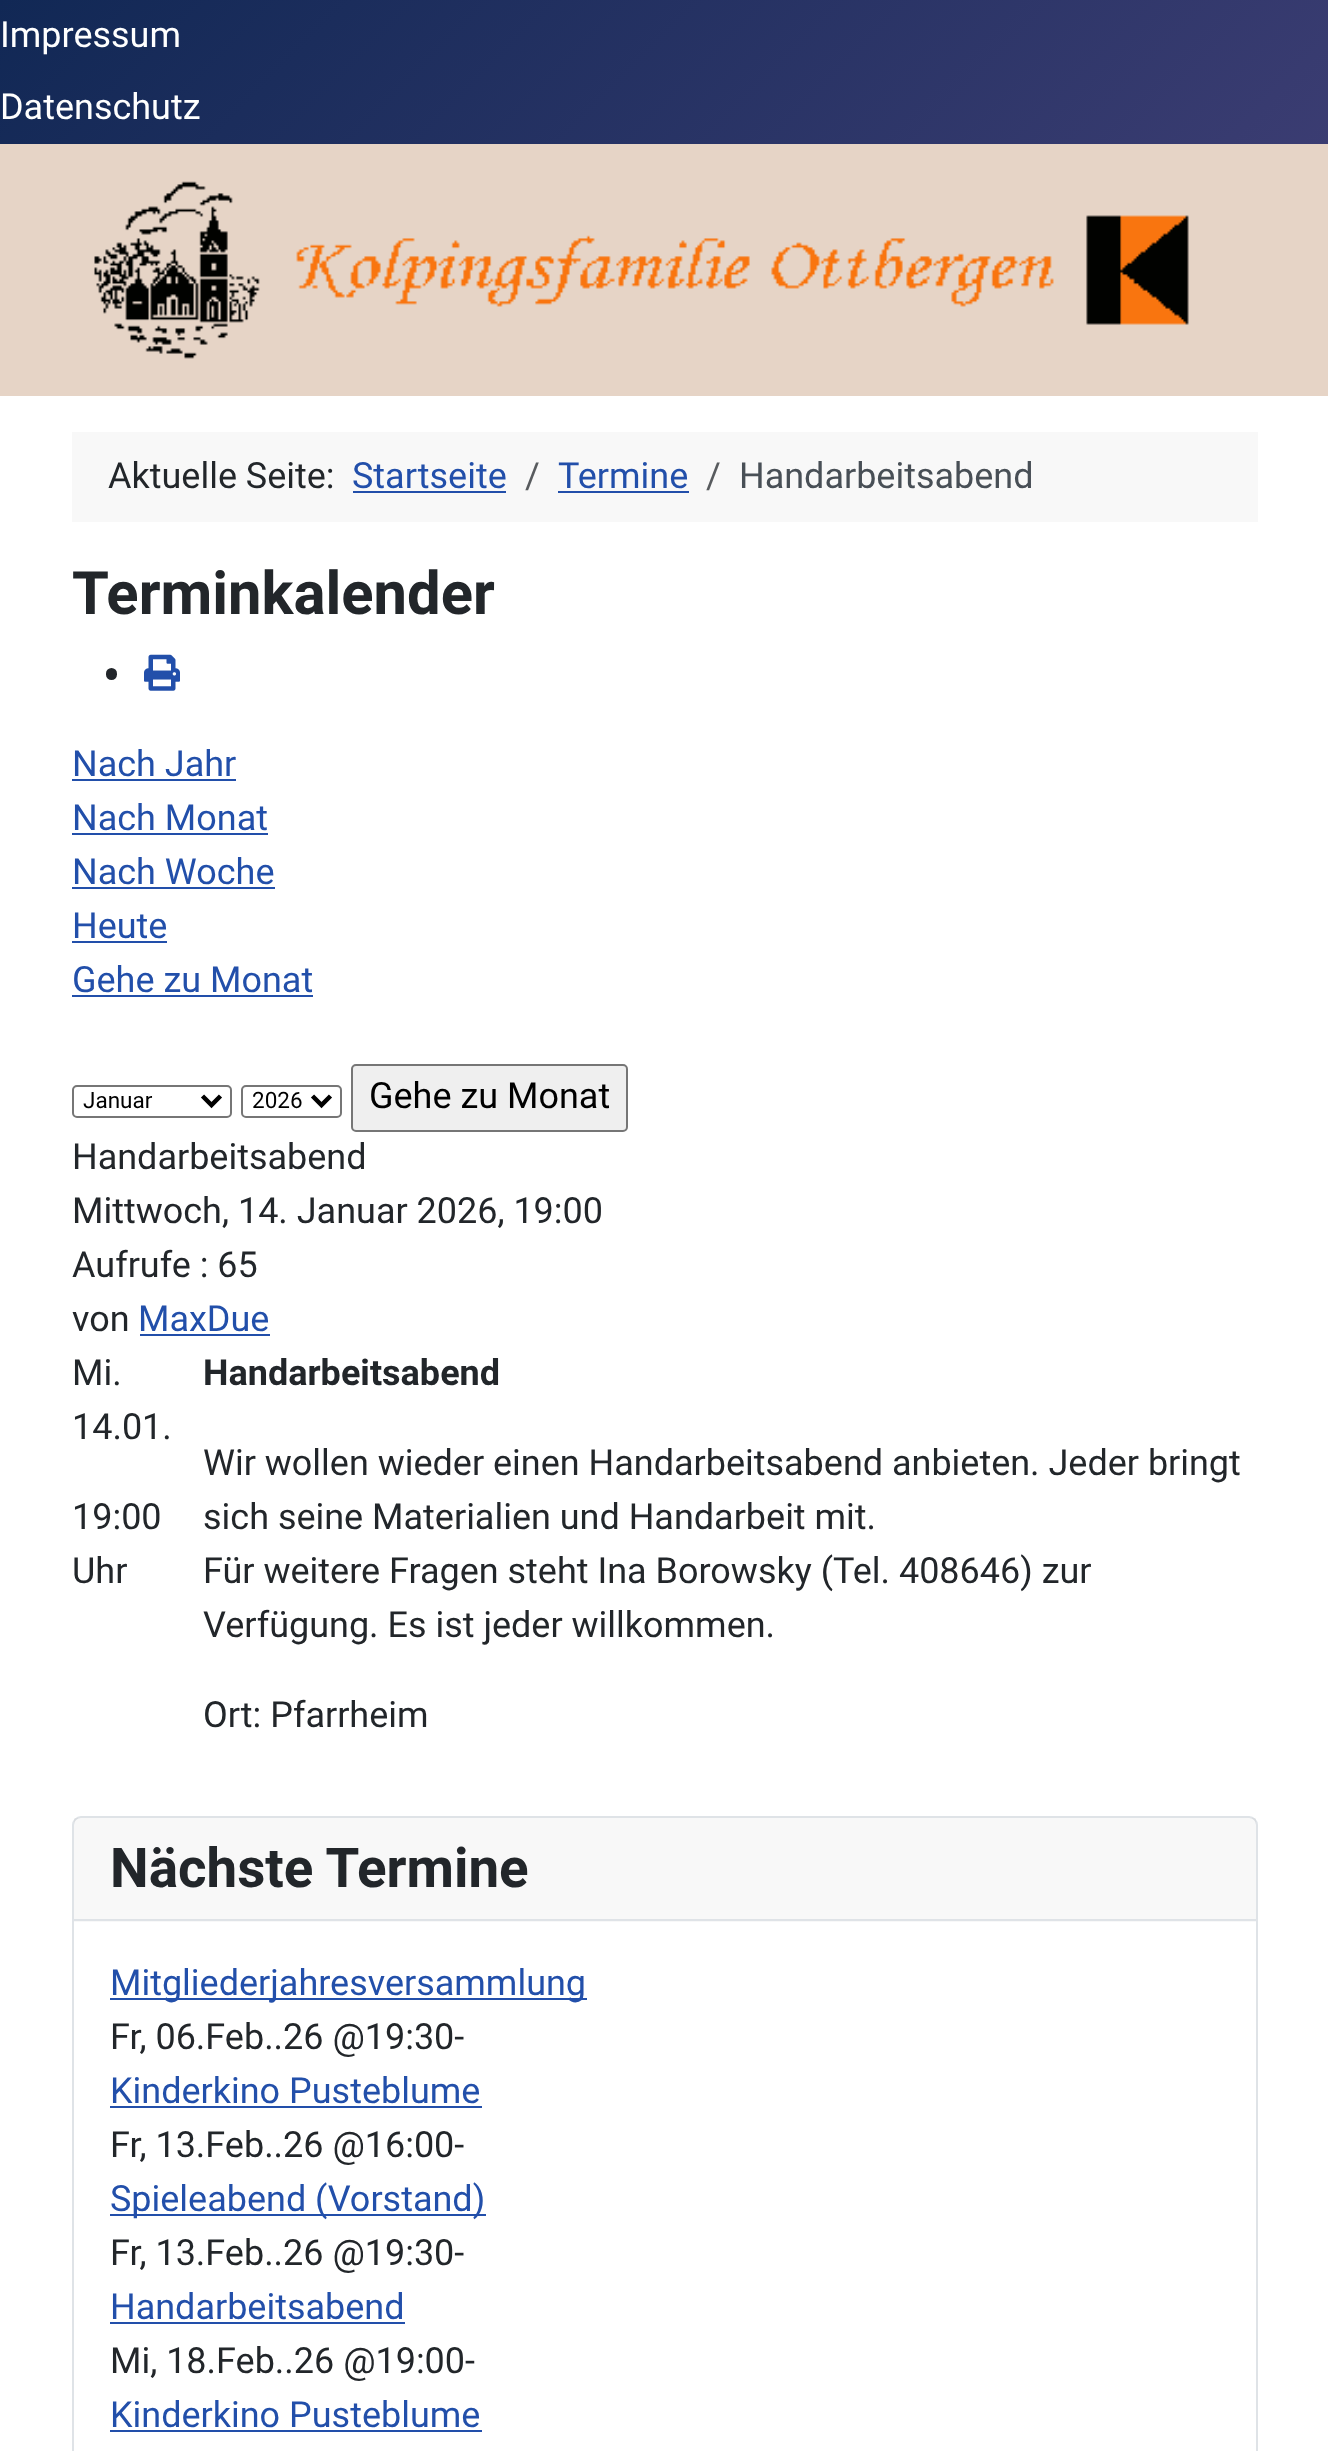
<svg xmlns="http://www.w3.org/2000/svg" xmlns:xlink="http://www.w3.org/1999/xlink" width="1328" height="2451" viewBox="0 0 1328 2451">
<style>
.cls-1{font:36px Roboto;fill:#ffffff}
.cls-2{font:36px Roboto;fill:#22262a}
.cls-3{font:36px Roboto;fill:#224faa}
.cls-4{font:36px Roboto;fill:#585b5e}
.cls-5{font:36px Roboto;fill:#484f56}
.cls-6{font:bold 59.75px Roboto;fill:#22262a}
.cls-7{font:22.5px Roboto;fill:#000000}
.cls-8{font:36px Roboto;fill:#000000}
.cls-9{font:bold 36px Roboto;fill:#22262a}
.cls-10{font:bold 54.75px Roboto;fill:#22262a}
</style>
<defs>
<linearGradient id="g1" gradientUnits="userSpaceOnUse" x1="233" y1="-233" x2="1096" y2="629"><stop offset="0" stop-color="#112855"/><stop offset="1" stop-color="#424077"/></linearGradient>
</defs>
<rect width="100%" height="100%" fill="#ffffff"/>
<rect fill="url(#g1)" x="0" y="0" width="1328" height="144"/>
<rect fill="#e6d4c6" x="0" y="144" width="1328" height="252"/>
<image xlink:href="image0.png" x="94" y="181" width="1095" height="178"/>
<rect fill="#f8f8f8" x="72" y="432" width="1186" height="90"/>
<rect fill="#224faa" x="353" y="491" width="153" height="2"/>
<rect fill="#224faa" x="558" y="491" width="131" height="2"/>
<rect fill="#22262a" x="106" y="668" width="11" height="12" rx="5.5"/>
<image xlink:href="image1.png" x="144" y="654" width="36" height="37"/>
<rect fill="#224faa" x="72" y="779" width="164" height="2"/>
<rect fill="#224faa" x="72" y="833" width="196" height="2"/>
<rect fill="#224faa" x="72" y="887" width="203" height="2"/>
<rect fill="#224faa" x="72" y="941" width="95" height="2"/>
<rect fill="#224faa" x="72" y="995" width="241" height="2"/>
<rect fill="none" stroke="#767676" stroke-width="2" x="73" y="1086" width="158" height="31" rx="4"/>
<path fill="none" stroke="#000000" stroke-width="4.5" d="M202.5 1096L211.5 1105L220.5 1096"/>
<rect fill="none" stroke="#767676" stroke-width="2" x="242" y="1086" width="99" height="31" rx="4"/>
<path fill="none" stroke="#000000" stroke-width="4.5" d="M312.5 1096L321.5 1105L330.5 1096"/>
<rect fill="#efefef" stroke="#767676" stroke-width="2" x="352" y="1065" width="275" height="66" rx="4"/>
<rect fill="#224faa" x="140" y="1334" width="130" height="2"/>
<rect fill="none" stroke="#dfe3e7" stroke-width="2" x="73" y="1817" width="1184" height="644" rx="8"/>
<rect fill="#22262a" fill-opacity="0.03" x="74" y="1818" width="1182" height="104"/>
<rect fill="#dfe3e7" x="74" y="1919" width="1182" height="2"/>
<rect fill="#224faa" x="110" y="1998" width="477" height="2"/>
<rect fill="#224faa" x="110" y="2106" width="372" height="2"/>
<rect fill="#224faa" x="110" y="2214" width="376" height="2"/>
<rect fill="#224faa" x="110" y="2322" width="295" height="2"/>
<rect fill="#224faa" x="110" y="2430" width="372" height="2"/>
<text class="cls-1" x="0" y="47">Impressum</text>
<text class="cls-1" x="0" y="119">Datenschutz</text>
<text class="cls-2" x="108" y="488">Aktuelle Seite:</text>
<text class="cls-3" x="352" y="488">Startseite</text>
<text class="cls-4" x="525" y="488">/</text>
<text class="cls-3" x="558" y="488">Termine</text>
<text class="cls-4" x="706" y="488">/</text>
<text class="cls-5" x="739" y="488">Handarbeitsabend</text>
<text class="cls-6" x="72" y="614">Terminkalender</text>
<text class="cls-3"><tspan x="72" y="776">Nach Jahr</tspan><tspan x="72" y="830">Nach Monat</tspan><tspan x="72" y="884">Nach Woche</tspan><tspan x="72" y="938">Heute</tspan><tspan x="72" y="992">Gehe zu Monat</tspan></text>
<text class="cls-7" x="83" y="1108">Januar</text>
<text class="cls-7" x="252" y="1108">2026</text>
<text class="cls-8" x="369" y="1108">Gehe zu Monat</text>
<text class="cls-2"><tspan x="72" y="1169">Handarbeitsabend</tspan><tspan x="72" y="1223">Mittwoch, 14. Januar 2026, 19:00</tspan><tspan x="72" y="1277">Aufrufe : 65</tspan><tspan x="72" y="1331">von</tspan></text>
<text class="cls-3" x="138" y="1331">MaxDue</text>
<text class="cls-2"><tspan x="72" y="1385">Mi.</tspan><tspan x="72" y="1439">14.01.</tspan></text>
<text class="cls-2"><tspan x="72" y="1529">19:00</tspan><tspan x="72" y="1583">Uhr</tspan></text>
<text class="cls-9" x="203" y="1385">Handarbeitsabend</text>
<text class="cls-2"><tspan x="203" y="1475">Wir wollen wieder einen Handarbeitsabend anbieten. Jeder bringt</tspan><tspan x="203" y="1529">sich seine Materialien und Handarbeit mit.</tspan><tspan x="203" y="1583">Für weitere Fragen steht Ina Borowsky (Tel. 408646) zur</tspan><tspan x="203" y="1637">Verfügung. Es ist jeder willkommen.</tspan></text>
<text class="cls-2" x="203" y="1727">Ort: Pfarrheim</text>
<text class="cls-10" x="110" y="1887">Nächste Termine</text>
<text class="cls-3" x="110" y="1995">Mitgliederjahresversammlung</text>
<text class="cls-2" x="110" y="2049">Fr, 06.Feb..26 @19:30-</text>
<text class="cls-3" x="110" y="2103">Kinderkino Pusteblume</text>
<text class="cls-2" x="110" y="2157">Fr, 13.Feb..26 @16:00-</text>
<text class="cls-3" x="110" y="2211">Spieleabend (Vorstand)</text>
<text class="cls-2" x="110" y="2265">Fr, 13.Feb..26 @19:30-</text>
<text class="cls-3" x="110" y="2319">Handarbeitsabend</text>
<text class="cls-2" x="110" y="2373">Mi, 18.Feb..26 @19:00-</text>
<text class="cls-3" x="110" y="2427">Kinderkino Pusteblume</text>
</svg>
